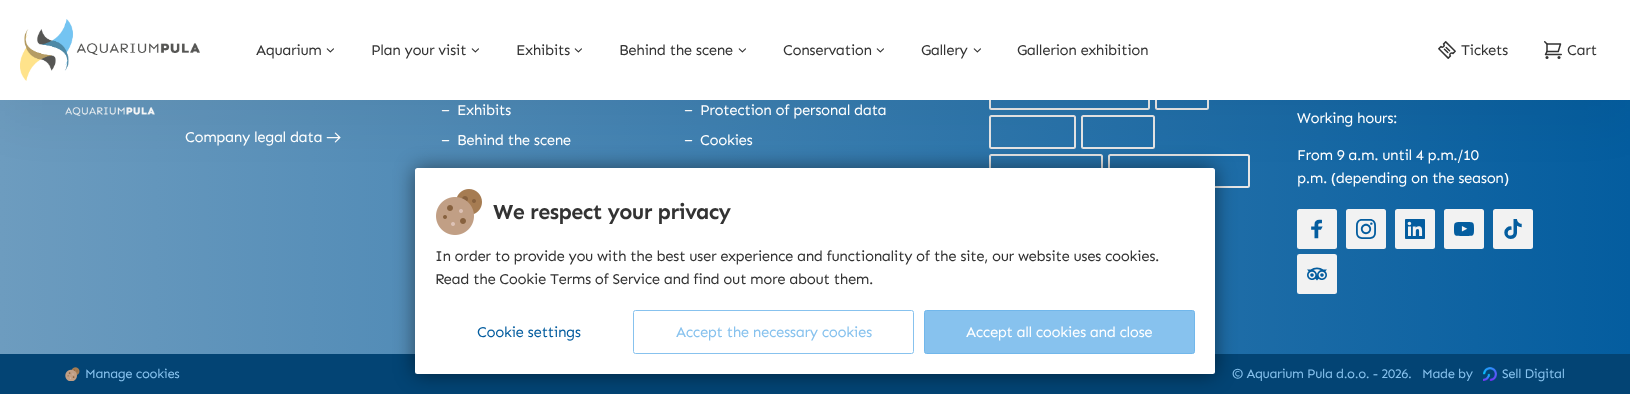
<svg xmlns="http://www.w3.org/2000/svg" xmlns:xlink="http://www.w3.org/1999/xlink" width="1630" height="394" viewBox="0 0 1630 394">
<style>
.cls-1{font:15px Sen;letter-spacing:-0.4px;fill:#333333}
.cls-2{font:15px Sen;letter-spacing:-0.4px;fill:#ffffff}
.cls-3{font:13.1px Sen;letter-spacing:-0.35px;fill:#87c2ee}
.cls-4{font:bold 21.6px Sen;letter-spacing:-0.6px;fill:#333333}
.cls-5{font:15px Sen;letter-spacing:-0.4px;fill:#045d9f}
.cls-6{font:15px Sen;letter-spacing:-0.4px;fill:#87c2ee}
</style>
<defs>
<linearGradient id="g1" gradientUnits="userSpaceOnUse" x1="0" y1="153" x2="1630" y2="152"><stop offset="0" stop-color="#6d9cbf"/><stop offset="1" stop-color="#045d9f"/></linearGradient>
</defs>
<rect width="100%" height="100%" fill="#ffffff"/>
<rect fill="url(#g1)" x="0" y="100" width="1630" height="254"/>
<image xlink:href="image5.png" x="65" y="107" width="90" height="9"/>
<image xlink:href="image6.png" x="326" y="132" width="15" height="11"/>
<image xlink:href="image7.png" x="441" y="110" width="9" height="2"/>
<image xlink:href="image7.png" x="441" y="140" width="9" height="2"/>
<image xlink:href="image8.png" x="684" y="110" width="9" height="2"/>
<image xlink:href="image8.png" x="684" y="140" width="9" height="2"/>
<rect fill="none" stroke="#e6e6e6" stroke-width="2" x="990" y="77" width="159" height="32" rx="1.5"/>
<rect fill="none" stroke="#e6e6e6" stroke-width="2" x="1156" y="77" width="52" height="32" rx="1.5"/>
<rect fill="none" stroke="#e6e6e6" stroke-width="2" x="990" y="116" width="85" height="32" rx="1.5"/>
<rect fill="none" stroke="#e6e6e6" stroke-width="2" x="1082" y="116" width="72" height="32" rx="1.5"/>
<rect fill="none" stroke="#e6e6e6" stroke-width="2" x="990" y="155" width="112" height="32" rx="1.5"/>
<rect fill="none" stroke="#e6e6e6" stroke-width="2" x="1109" y="155" width="140" height="32" rx="1.5"/>
<rect fill="#000000" fill-opacity="0.05" filter="blur(25px)" x="0" y="20" width="1630" height="100"/>
<rect fill="#ffffff" x="0" y="0" width="1630" height="100"/>
<image xlink:href="image0.png" x="20" y="19" width="180" height="62"/>
<image xlink:href="image1.png" x="326" y="48" width="8" height="5"/>
<image xlink:href="image1.png" x="471" y="48" width="8" height="5"/>
<image xlink:href="image1.png" x="574" y="48" width="8" height="5"/>
<image xlink:href="image1.png" x="738" y="48" width="8" height="5"/>
<image xlink:href="image1.png" x="876" y="48" width="8" height="5"/>
<image xlink:href="image2.png" x="973" y="48" width="8" height="5"/>
<image xlink:href="image3.png" x="1438" y="41" width="18" height="18"/>
<image xlink:href="image4.png" x="1544" y="41" width="18" height="18"/>
<rect fill="#f2f2f2" x="1297" y="209" width="40" height="40" rx="2.5"/>
<image xlink:href="image9.png" x="1311" y="219" width="12" height="20"/>
<rect fill="#f2f2f2" x="1346" y="209" width="40" height="40" rx="2.5"/>
<image xlink:href="image10.png" x="1356" y="219" width="20" height="20"/>
<rect fill="#f2f2f2" x="1395" y="209" width="40" height="40" rx="2.5"/>
<image xlink:href="image11.png" x="1405" y="219" width="20" height="20"/>
<rect fill="#f2f2f2" x="1444" y="209" width="40" height="40" rx="2.5"/>
<image xlink:href="image12.png" x="1454" y="222" width="20" height="14"/>
<rect fill="#f2f2f2" x="1493" y="209" width="40" height="40" rx="2.5"/>
<image xlink:href="image13.png" x="1504" y="219" width="18" height="20"/>
<rect fill="#f2f2f2" x="1297" y="254" width="40" height="40" rx="2.5"/>
<image xlink:href="image14.png" x="1307" y="267" width="20" height="14"/>
<rect fill="#034474" x="0" y="354" width="1630" height="40"/>
<image xlink:href="image15.png" x="65" y="367" width="15" height="14"/>
<image xlink:href="image16.png" x="1483" y="367" width="14" height="14"/>
<rect fill="#000000" fill-opacity="0.5" filter="blur(10px)" x="415" y="168" width="800" height="206" rx="2.5"/>
<rect fill="#ffffff" x="415" y="168" width="800" height="206" rx="2.5"/>
<image xlink:href="image17.png" x="436" y="189" width="46" height="46"/>
<rect fill="none" stroke="#87c2ee" x="633.5" y="310.5" width="280" height="43" rx="2"/>
<rect fill="#87c2ee" stroke="#71b7eb" x="924.5" y="310.5" width="270" height="43" rx="2"/>
<text class="cls-1" x="256" y="55">Aquarium</text>
<text class="cls-1" x="371" y="55">Plan your visit</text>
<text class="cls-1" x="516" y="55">Exhibits</text>
<text class="cls-1" x="619" y="55">Behind the scene</text>
<text class="cls-1" x="783" y="55">Conservation</text>
<text class="cls-1" x="921" y="55">Gallery</text>
<text class="cls-1" x="1017" y="55">Gallerion exhibition</text>
<text class="cls-1" x="1461" y="55">Tickets</text>
<text class="cls-1" x="1567" y="55">Cart</text>
<text class="cls-2" x="185" y="142">Company legal data</text>
<text class="cls-2" x="457" y="115">Exhibits</text>
<text class="cls-2" x="457" y="145">Behind the scene</text>
<text class="cls-2" x="700" y="115">Protection of personal data</text>
<text class="cls-2" x="700" y="145">Cookies</text>
<text class="cls-2" x="1297" y="123">Working hours:</text>
<text class="cls-2"><tspan x="1297" y="160">From 9 a.m. until 4 p.m./10</tspan><tspan x="1297" y="183">p.m. (depending on the season)</tspan></text>
<text class="cls-3" x="85" y="378">Manage cookies</text>
<text class="cls-3" x="1232" y="378">© Aquarium Pula d.o.o. - 2026.</text>
<text class="cls-3" x="1422" y="378">Made by</text>
<text class="cls-3" x="1502" y="378">Sell Digital</text>
<text class="cls-4" x="493" y="219">We respect your privacy</text>
<text class="cls-1"><tspan x="435" y="261">In order to provide you with the best user experience and functionality of the site, our website uses cookies.</tspan><tspan x="435" y="284">Read the Cookie Terms of Service and find out more about them.</tspan></text>
<text class="cls-5" x="477" y="337">Cookie settings</text>
<text class="cls-6" x="676" y="337">Accept the necessary cookies</text>
<text class="cls-2" x="966" y="337">Accept all cookies and close</text>
</svg>
